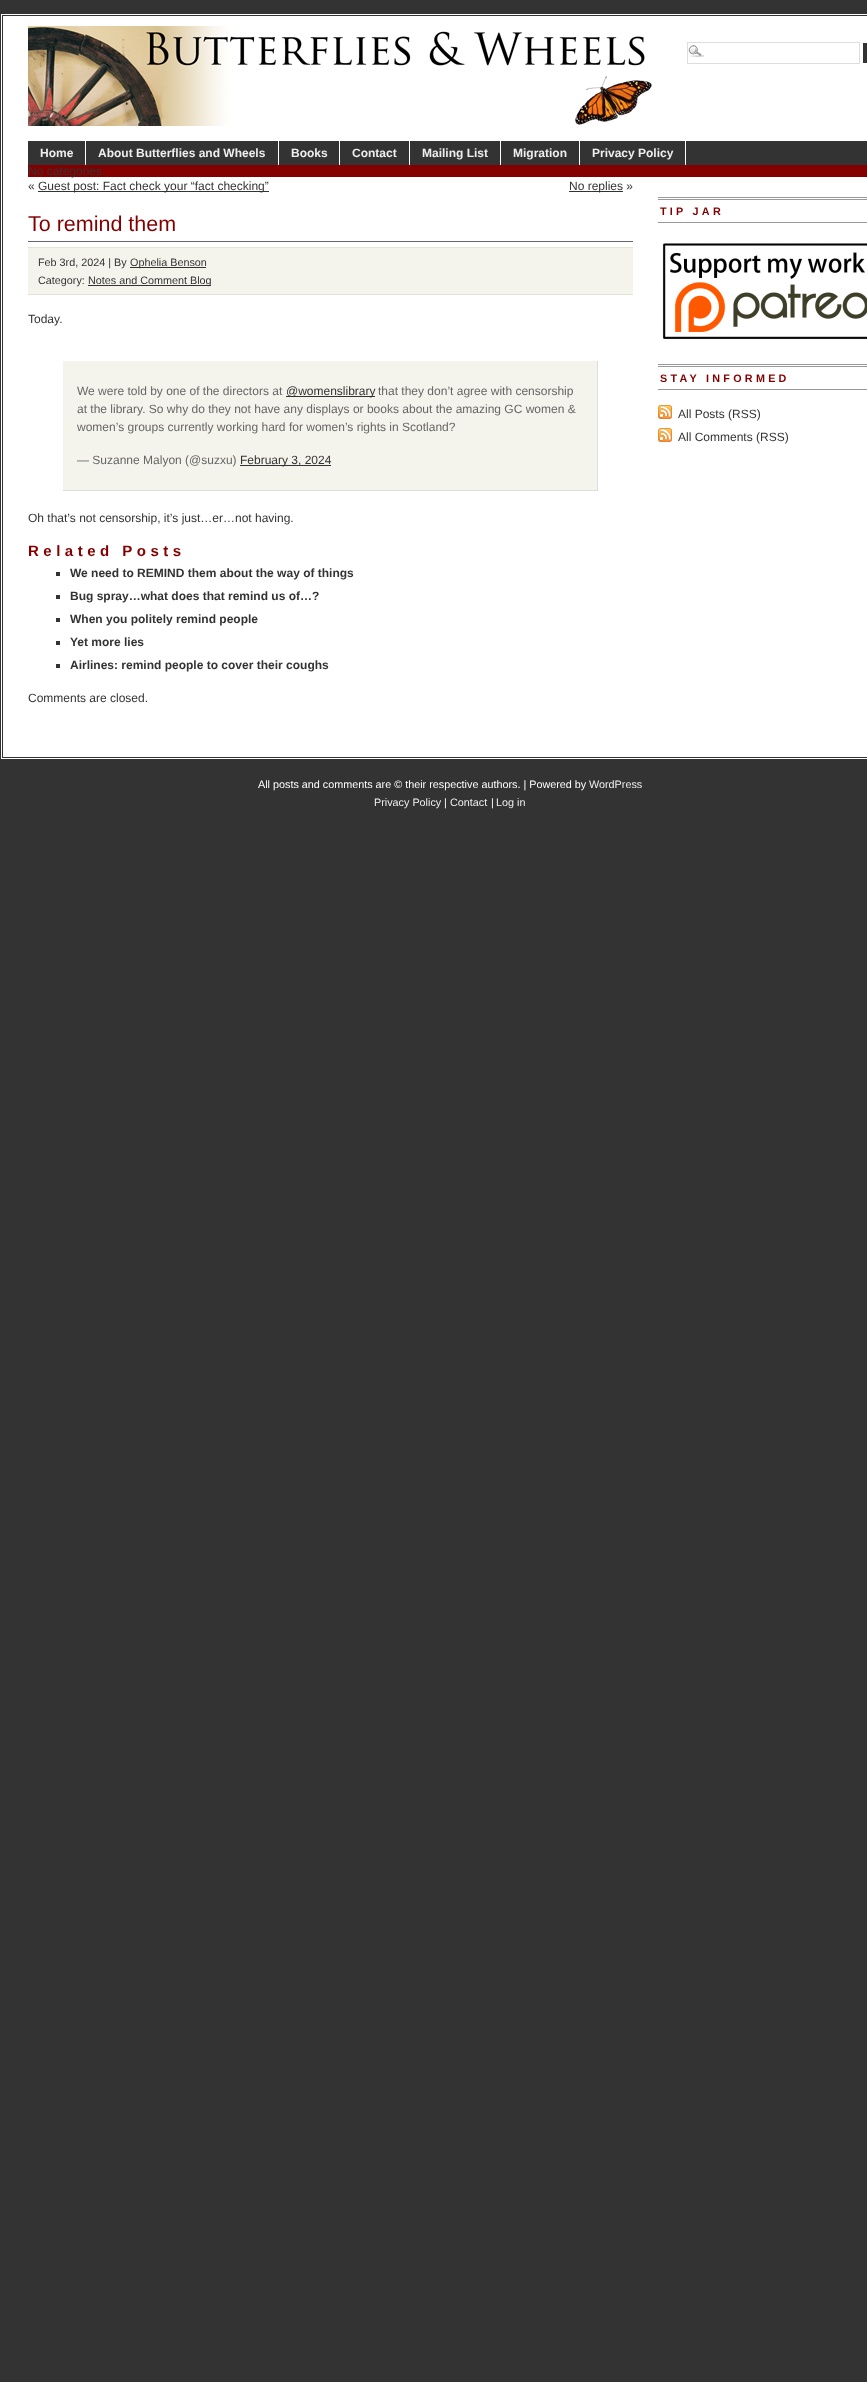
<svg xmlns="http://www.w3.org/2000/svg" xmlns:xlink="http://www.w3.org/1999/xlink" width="867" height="2382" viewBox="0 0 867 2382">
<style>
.cls-1{font:bold 12px Liberation Sans;fill:#eeeeee}
.cls-2{font:12px Liberation Sans;fill:#333333}
.cls-3{font:21.5px Liberation Sans;fill:#840000}
.cls-4{font:10.8px Liberation Sans;fill:#333333}
.cls-5{font:12px Liberation Sans;fill:#666666}
.cls-6{font:bold 15px Liberation Sans;letter-spacing:4.5px;fill:#840000}
.cls-7{font:bold 12px Liberation Sans;fill:#333333}
.cls-8{font:bold 10.8px Liberation Sans;letter-spacing:3.25px;fill:#840000}
.cls-9{font:10.8px Liberation Sans;fill:#ffffff}
.cls-10{font:10.8px Liberation Sans;fill:#eeeeee}
</style>
<rect width="100%" height="100%" fill="#333333"/>
<rect fill="#ffffff" x="1" y="14" width="866" height="745"/>
<rect fill="none" stroke="#333333" x="2.5" y="15.5" width="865" height="742"/>
<image xlink:href="image0.png" x="28" y="26" width="624" height="100"/>
<image xlink:href="image1.png" x="688" y="45" width="16" height="12"/>
<rect fill="none" stroke="#dddddd" x="687.5" y="42.5" width="172" height="21"/>
<rect fill="#333333" x="863" y="43" width="4" height="20"/>
<rect fill="#333333" x="28" y="141" width="839" height="24"/>
<rect fill="#ffffff" x="85" y="141" width="1" height="24"/>
<rect fill="#ffffff" x="278" y="141" width="1" height="24"/>
<rect fill="#ffffff" x="339" y="141" width="1" height="24"/>
<rect fill="#ffffff" x="409" y="141" width="1" height="24"/>
<rect fill="#ffffff" x="500" y="141" width="1" height="24"/>
<rect fill="#ffffff" x="579" y="141" width="1" height="24"/>
<rect fill="#ffffff" x="685" y="141" width="1" height="24"/>
<rect fill="#840000" x="28" y="165" width="839" height="12"/>
<rect fill="#333333" x="38" y="191" width="231" height="1"/>
<rect fill="#333333" x="569" y="191" width="54" height="1"/>
<rect fill="#666666" x="28" y="241" width="605" height="1"/>
<rect fill="#f4f4ec" x="28" y="248" width="605" height="46"/>
<rect fill="#e6e3d3" x="28" y="247" width="605" height="1"/>
<rect fill="#e6e3d3" x="28" y="294" width="605" height="1"/>
<rect fill="#333333" x="130" y="267" width="76" height="1"/>
<rect fill="#333333" x="88" y="285" width="123" height="1"/>
<rect fill="#f4f4ec" x="63" y="361" width="534" height="129"/>
<rect fill="#dddddd" x="597" y="361" width="1" height="130"/>
<rect fill="#dddddd" x="63" y="490" width="535" height="1"/>
<rect fill="#333333" x="286" y="396" width="89" height="1"/>
<rect fill="#333333" x="240" y="465" width="91" height="1"/>
<rect fill="#333333" x="56" y="572" width="4" height="4"/>
<rect fill="#333333" x="56" y="595" width="4" height="4"/>
<rect fill="#333333" x="56" y="618" width="4" height="4"/>
<rect fill="#333333" x="56" y="641" width="4" height="4"/>
<rect fill="#333333" x="56" y="664" width="4" height="4"/>
<rect fill="#999999" x="658" y="197" width="209" height="1"/>
<rect fill="#999999" x="658" y="199" width="209" height="1"/>
<rect fill="#999999" x="658" y="222" width="209" height="1"/>
<image xlink:href="image2.png" x="662" y="243" width="205" height="97"/>
<rect fill="#999999" x="658" y="364" width="209" height="1"/>
<rect fill="#999999" x="658" y="366" width="209" height="1"/>
<rect fill="#999999" x="658" y="389" width="209" height="1"/>
<image xlink:href="image3.png" x="658" y="405" width="14" height="14"/>
<image xlink:href="image3.png" x="658" y="428" width="14" height="14"/>
<text class="cls-1" x="40" y="157">Home</text>
<text class="cls-1" x="98" y="157">About Butterflies and Wheels</text>
<text class="cls-1" x="291" y="157">Books</text>
<text class="cls-1" x="352" y="157">Contact</text>
<text class="cls-1" x="422" y="157">Mailing List</text>
<text class="cls-1" x="513" y="157">Migration</text>
<text class="cls-1" x="592" y="157">Privacy Policy</text>
<text class="cls-2"><tspan x="28" y="175">No categories</tspan><tspan x="28" y="190">«</tspan></text>
<text class="cls-2" x="38" y="190">Guest post: Fact check your “fact checking”</text>
<text class="cls-2" x="569" y="190">No replies »</text>
<text class="cls-3" x="28" y="231">To remind them</text>
<text class="cls-4" x="38" y="266">Feb 3rd, 2024 | By</text>
<text class="cls-4" x="130" y="266">Ophelia Benson</text>
<text class="cls-4" x="38" y="284">Category:</text>
<text class="cls-4" x="88" y="284">Notes and Comment Blog</text>
<text class="cls-2" x="28" y="323">Today.</text>
<text class="cls-5" x="77" y="395">We were told by one of the directors at</text>
<text class="cls-2" x="286" y="395">@womenslibrary</text>
<text class="cls-5" x="378" y="395">that they don’t agree with censorship</text>
<text class="cls-5"><tspan x="77" y="413">at the library. So why do they not have any displays or books about the amazing GC women &amp;</tspan><tspan x="77" y="431">women’s groups currently working hard for women’s rights in Scotland?</tspan></text>
<text class="cls-5" x="77" y="464">— Suzanne Malyon (@suzxu)</text>
<text class="cls-2" x="240" y="464">February 3, 2024</text>
<text class="cls-2" x="28" y="522">Oh that’s not censorship, it’s just…er…not having.</text>
<text class="cls-6" x="28" y="556">Related Posts</text>
<text class="cls-7"><tspan x="70" y="577">We need to REMIND them about the way of things</tspan><tspan x="70" y="600">Bug spray…what does that remind us of…?</tspan><tspan x="70" y="623">When you politely remind people</tspan><tspan x="70" y="646">Yet more lies</tspan><tspan x="70" y="669">Airlines: remind people to cover their coughs</tspan></text>
<text class="cls-2" x="28" y="702">Comments are closed.</text>
<text class="cls-8" x="660" y="215">TIP JAR</text>
<text class="cls-8" x="660" y="382">STAY INFORMED</text>
<text class="cls-2"><tspan x="678" y="418">All Posts (RSS)</tspan><tspan x="678" y="441">All Comments (RSS)</tspan></text>
<text class="cls-9" x="258" y="788">All posts and comments are © their respective authors. | Powered by</text>
<text class="cls-10" x="589" y="788">WordPress</text>
<text class="cls-10" x="374" y="806">Privacy Policy</text>
<text class="cls-9" x="444" y="806">|</text>
<text class="cls-10" x="450" y="806">Contact</text>
<text class="cls-9" x="491" y="806">|</text>
<text class="cls-10" x="496" y="806">Log in</text>
</svg>
